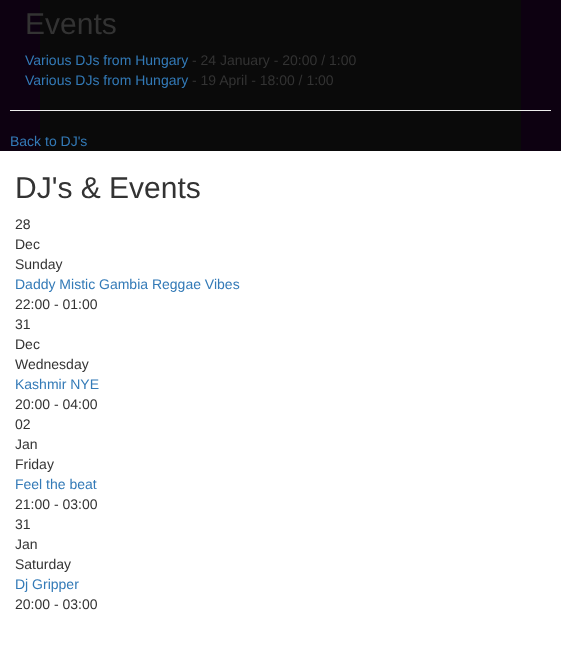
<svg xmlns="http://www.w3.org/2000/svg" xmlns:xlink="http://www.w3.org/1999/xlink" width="561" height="653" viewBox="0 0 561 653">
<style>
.cls-1{font:30px Liberation Sans;fill:#333333}
.cls-2{font:14px Liberation Sans;fill:#337ab7}
.cls-3{font:14px Liberation Sans;fill:#333333}
</style>
<rect width="100%" height="100%" fill="#ffffff"/>
<rect fill="#0d0111" x="0" y="0" width="561" height="151"/>
<rect fill="#0a0a0a" x="40" y="0" width="481" height="151"/>
<rect fill="#eeeeee" x="10" y="110" width="541" height="1"/>
<text class="cls-1" x="25" y="34">Events</text>
<text class="cls-2" x="25" y="65">Various DJs from Hungary</text>
<text class="cls-3" x="192" y="65">- 24 January - 20:00 / 1:00</text>
<text class="cls-2" x="25" y="85">Various DJs from Hungary</text>
<text class="cls-3" x="192" y="85">- 19 April - 18:00 / 1:00</text>
<text class="cls-2" x="10" y="146">Back to DJ's</text>
<text class="cls-1" x="15" y="198">DJ's &amp; Events</text>
<text class="cls-3"><tspan x="15" y="229">28</tspan><tspan x="15" y="249">Dec</tspan><tspan x="15" y="269">Sunday</tspan></text>
<text class="cls-2" x="15" y="289">Daddy Mistic Gambia Reggae Vibes</text>
<text class="cls-3"><tspan x="15" y="309">22:00 - 01:00</tspan><tspan x="15" y="329">31</tspan><tspan x="15" y="349">Dec</tspan><tspan x="15" y="369">Wednesday</tspan></text>
<text class="cls-2" x="15" y="389">Kashmir NYE</text>
<text class="cls-3"><tspan x="15" y="409">20:00 - 04:00</tspan><tspan x="15" y="429">02</tspan><tspan x="15" y="449">Jan</tspan><tspan x="15" y="469">Friday</tspan></text>
<text class="cls-2" x="15" y="489">Feel the beat</text>
<text class="cls-3"><tspan x="15" y="509">21:00 - 03:00</tspan><tspan x="15" y="529">31</tspan><tspan x="15" y="549">Jan</tspan><tspan x="15" y="569">Saturday</tspan></text>
<text class="cls-2" x="15" y="589">Dj Gripper</text>
<text class="cls-3" x="15" y="609">20:00 - 03:00</text>
</svg>
